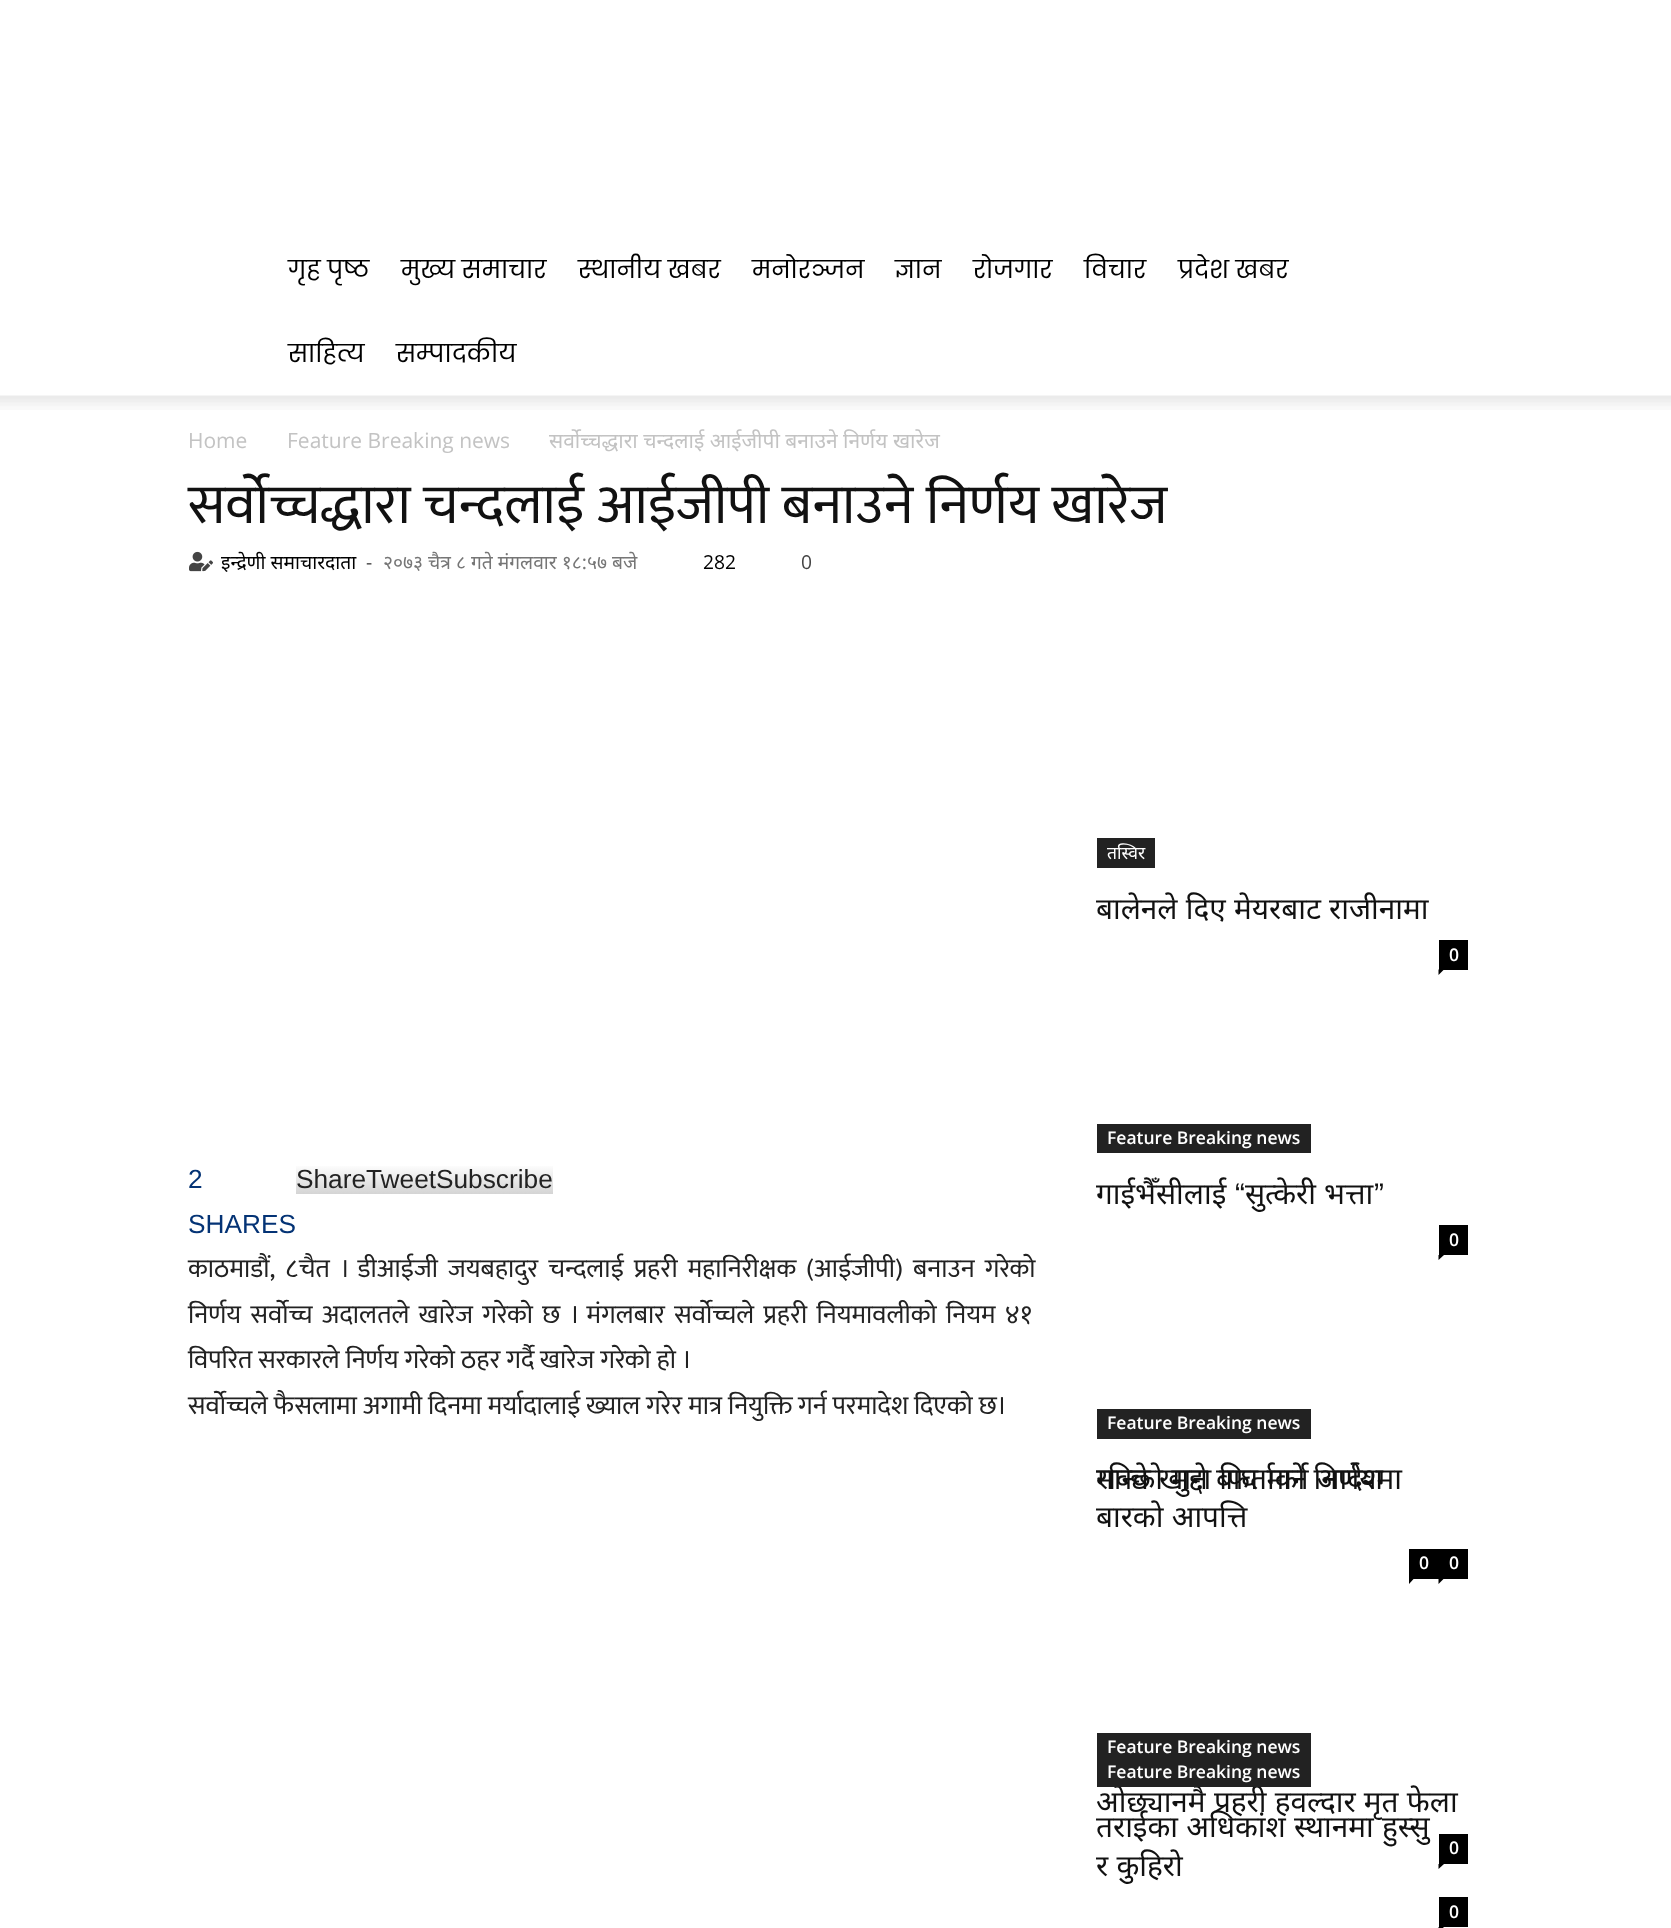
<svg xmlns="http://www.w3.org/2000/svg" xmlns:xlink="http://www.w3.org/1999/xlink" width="1671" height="1928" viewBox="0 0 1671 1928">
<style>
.cls-1{font:24.5px Poppins;fill:#000000}
.cls-2{font:21px Open Sans;fill:#c3c3c3}
.cls-3{font:21px Noto Sans;fill:#c3c3c3}
.cls-4{font:56px Ek Mukta;fill:#111111}
.cls-5{font:19.25px Noto Sans;fill:#000000}
.cls-6{font:19.25px Open Sans;fill:#444444}
.cls-7{font:19.25px Noto Sans;fill:#767676}
.cls-8{font:19.25px Open Sans;fill:#000000}
.cls-9{font:26.25px Liberation Sans;fill:#043375}
.cls-10{font:26.25px Liberation Sans;fill:#222222}
.cls-11{font:26.25px Ek Mukta;fill:#222222}
.cls-12{font:17.5px Noto Sans;fill:#ffffff}
.cls-13{font:29.75px Noto Sans;fill:#111111}
.cls-14{font:600 17.5px Open Sans;fill:#ffffff}
.cls-15{font:29.75px Liberation Sans;fill:#111111}
</style>
<defs>
<linearGradient id="g1" gradientUnits="userSpaceOnUse" x1="331" y1="1194" x2="331" y2="1164"><stop offset="0" stop-color="#d4d4d4"/><stop offset="1" stop-color="#ffffff"/></linearGradient>
<linearGradient id="g2" gradientUnits="userSpaceOnUse" x1="401" y1="1194" x2="401" y2="1164"><stop offset="0" stop-color="#d4d4d4"/><stop offset="1" stop-color="#ffffff"/></linearGradient>
<linearGradient id="g3" gradientUnits="userSpaceOnUse" x1="494" y1="1194" x2="494" y2="1164"><stop offset="0" stop-color="#d4d4d4"/><stop offset="1" stop-color="#ffffff"/></linearGradient>
</defs>
<rect width="100%" height="100%" fill="#ffffff"/>
<image xlink:href="image0.png" x="0" y="395" width="1671" height="15"/>
<image xlink:href="image1.png" x="189" y="551" width="24" height="21"/>
<rect fill="url(#g1)" x="296" y="1166" width="70" height="28"/>
<rect fill="url(#g2)" x="366" y="1166" width="70" height="28"/>
<rect fill="url(#g3)" x="436" y="1166" width="117" height="28"/>
<rect fill="#222222" x="1097" y="838" width="58" height="30"/>
<rect fill="#000000" x="1439" y="940" width="29" height="30"/>
<path fill="#000000" d="M1438.5 969.5H1444L1438.5 975Z"/>
<rect fill="#222222" x="1097" y="1124" width="214" height="29"/>
<rect fill="#000000" x="1439" y="1225" width="29" height="30"/>
<path fill="#000000" d="M1438.5 1255H1444L1438.5 1260Z"/>
<rect fill="#222222" x="1097" y="1409" width="214" height="30"/>
<rect fill="#000000" x="1439" y="1549" width="29" height="30"/>
<path fill="#000000" d="M1438.5 1578.5H1444L1438.5 1584Z"/>
<rect fill="#000000" x="1409" y="1549" width="30" height="30"/>
<path fill="#000000" d="M1409 1578.5H1414L1409 1584Z"/>
<rect fill="#222222" x="1097" y="1733" width="214" height="24"/>
<rect fill="#000000" x="1439" y="1834" width="29" height="30"/>
<path fill="#000000" d="M1438.5 1864H1444L1438.5 1869Z"/>
<rect fill="#000000" x="1439" y="1897" width="29" height="30"/>
<path fill="#000000" d="M1438.5 1927H1444L1438.5 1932Z"/>
<text class="cls-1" x="288" y="278">गृह पृष्ठ</text>
<text class="cls-1" x="401" y="278">मुख्य समाचार</text>
<text class="cls-1" x="578" y="278">स्थानीय खबर</text>
<text class="cls-1" x="752" y="278">मनोरञ्जन</text>
<text class="cls-1" x="895" y="278">ज्ञान</text>
<text class="cls-1" x="973" y="278">रोजगार</text>
<text class="cls-1" x="1084" y="278">विचार</text>
<text class="cls-1" x="1178" y="278">प्रदेश खबर</text>
<text class="cls-1" x="288" y="362">साहित्य</text>
<text class="cls-1" x="396" y="362">सम्पादकीय</text>
<text class="cls-2" x="188" y="448">Home</text>
<text class="cls-2" x="287" y="448">Feature Breaking news</text>
<text class="cls-3" x="549" y="448">सर्वोच्चद्धारा चन्दलाई आईजीपी बनाउने निर्णय खारेज</text>
<text class="cls-4" x="188" y="523">सर्वोच्चद्धारा चन्दलाई आईजीपी बनाउने निर्णय खारेज</text>
<text class="cls-5" x="221" y="569">इन्द्रेणी समाचारदाता</text>
<text class="cls-6" x="366" y="569">-</text>
<text class="cls-7" x="383" y="569">२०७३ चैत्र ८ गते मंगलवार १८:५७ बजे</text>
<text class="cls-8" x="703" y="569">282</text>
<text class="cls-6" x="801" y="569">0</text>
<text class="cls-9"><tspan x="188" y="1188">2</tspan><tspan x="188" y="1233">SHARES</tspan></text>
<text class="cls-10" x="296" y="1188">Share</text>
<text class="cls-10" x="366" y="1188">Tweet</text>
<text class="cls-10" x="436" y="1188">Subscribe</text>
<text class="cls-11"><tspan x="188" y="1277" word-spacing="4.25">काठमाडौं, ८चैत । डीआईजी जयबहादुर चन्दलाई प्रहरी महानिरीक्षक (आईजीपी) बनाउन गरेको</tspan><tspan x="188" y="1323" word-spacing="3.5">निर्णय सर्वोच्च अदालतले खारेज गरेको छ । मंगलबार सर्वोच्चले प्रहरी नियमावलीको नियम ४१</tspan><tspan x="188" y="1368">विपरित सरकारले निर्णय गरेको ठहर गर्दै खारेज गरेको हो ।</tspan><tspan x="188" y="1414">सर्वोच्चले फैसलामा अगामी दिनमा मर्यादालाई ख्याल गरेर मात्र नियुक्ति गर्न परमादेश दिएको छ।</tspan></text>
<text class="cls-12" x="1107" y="859">तस्विर</text>
<text class="cls-13" x="1096" y="919" word-spacing="0.5">बालेनले दिए मेयरबाट राजीनामा</text>
<text class="cls-14" x="1449" y="961">0</text>
<text class="cls-14" x="1107" y="1144">Feature Breaking news</text>
<text class="cls-13" x="1096" y="1204">गाईभैँसीलाई</text>
<text class="cls-15" x="1235" y="1204">“</text>
<text class="cls-13" x="1245" y="1204" word-spacing="0.5">सुत्केरी भत्ता</text>
<text class="cls-15" x="1374" y="1204">”</text>
<text class="cls-14" x="1449" y="1246">0</text>
<text class="cls-14" x="1107" y="1429">Feature Breaking news</text>
<text class="cls-14" x="1419" y="1569">0</text>
<text class="cls-13" x="1096" y="1489" word-spacing="0.5">रविको मुद्दा फिर्ताको निर्णयमा</text>
<text class="cls-13"><tspan x="1096" y="1489" word-spacing="0.5">मान्छे खाने बाघ मार्न आदेश</tspan><tspan x="1096" y="1527" word-spacing="0.5">बारको आपत्ति</tspan></text>
<text class="cls-14" x="1449" y="1569">0</text>
<text class="cls-14" x="1107" y="1753">Feature Breaking news</text>
<text class="cls-13" x="1096" y="1812" word-spacing="0.5">ओछ्यानमै प्रहरी हवल्दार मृत फेला</text>
<text class="cls-14" x="1449" y="1854">0</text>
<rect fill="#222222" x="1097" y="1757" width="214" height="30"/>
<text class="cls-14" x="1107" y="1778">Feature Breaking news</text>
<text class="cls-13"><tspan x="1096" y="1837" word-spacing="0.5">तराईका अधिकांश स्थानमा हुस्सु</tspan><tspan x="1096" y="1876" word-spacing="0.5">र कुहिरो</tspan></text>
<text class="cls-14" x="1449" y="1918">0</text>
</svg>
